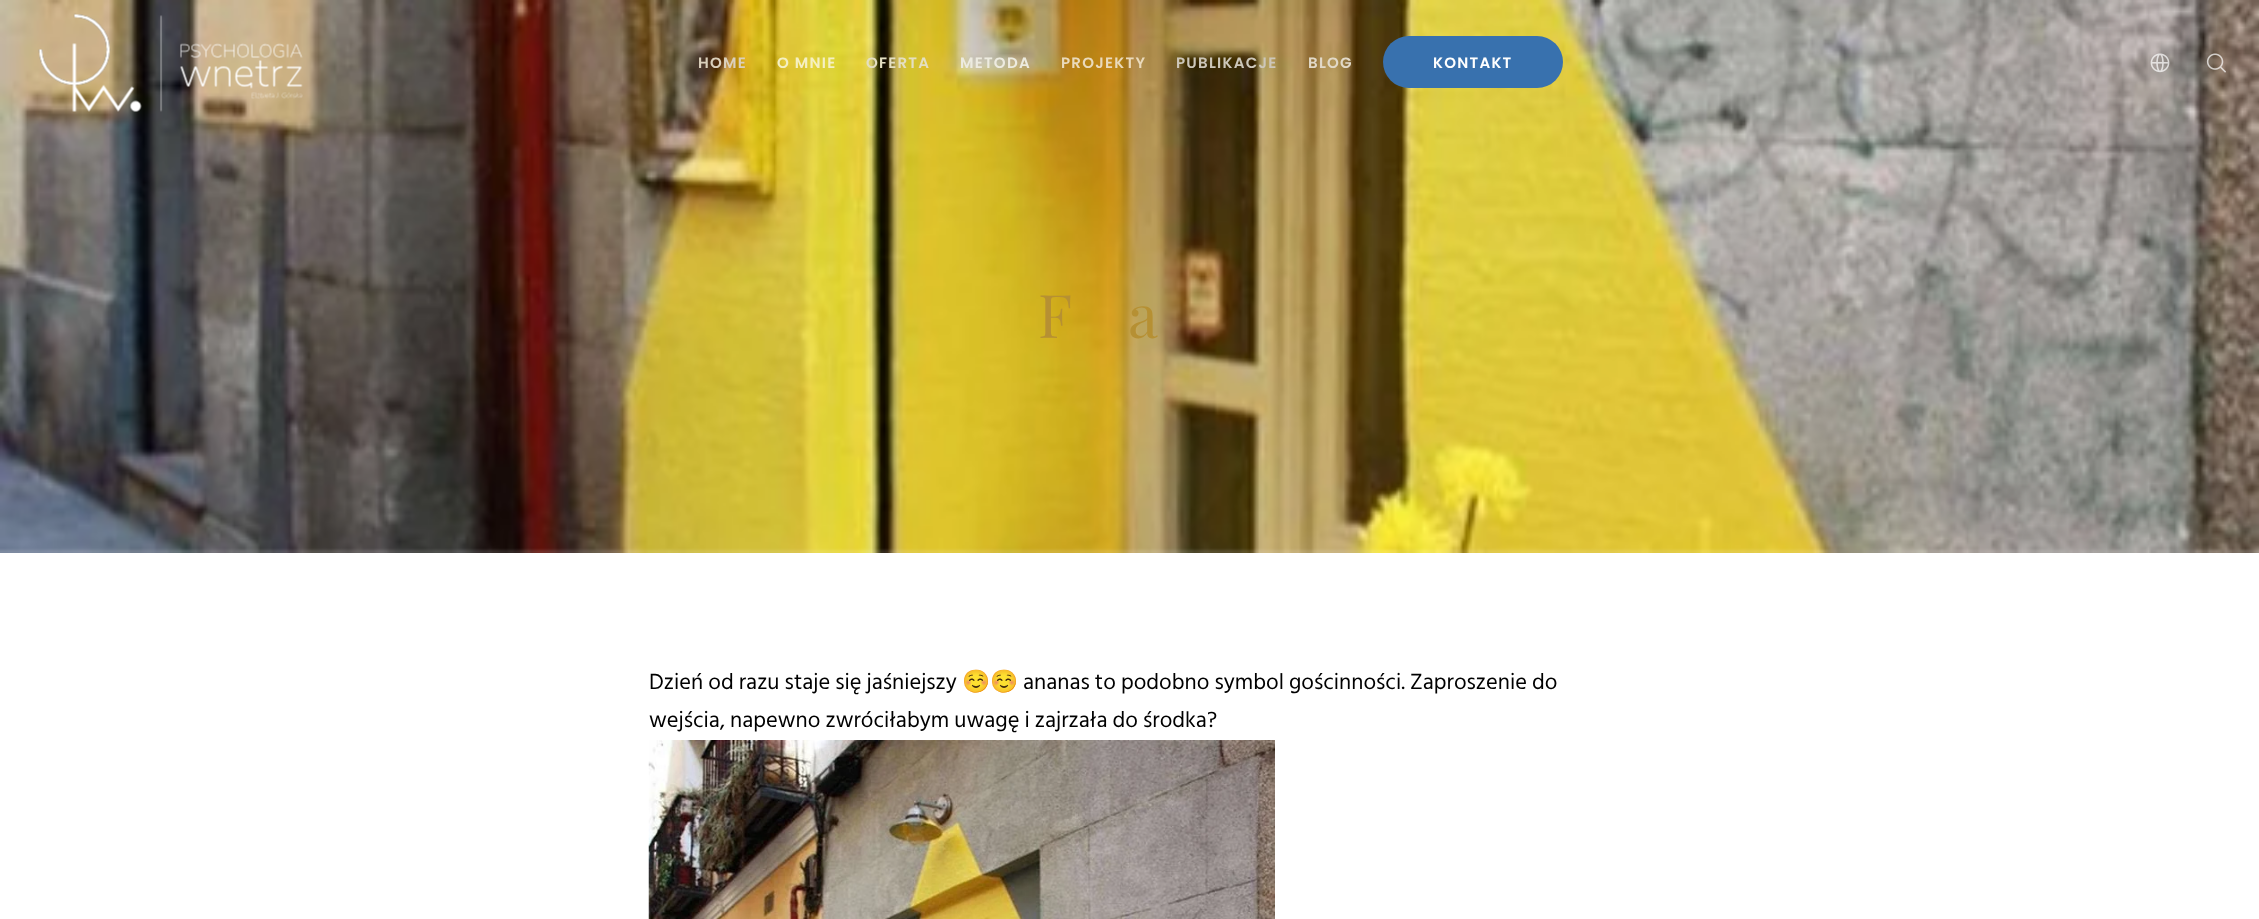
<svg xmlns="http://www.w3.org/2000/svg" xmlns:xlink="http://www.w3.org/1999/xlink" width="2259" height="919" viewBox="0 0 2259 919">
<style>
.cls-1{font:600 15px Poppins;letter-spacing:1.25px;fill:#dbd0bc}
.cls-2{font:600 15px Poppins;letter-spacing:1.25px;fill:#f5f0c3}
.cls-3{font:600 15px Poppins;letter-spacing:1.25px;fill:#e4dfc1}
.cls-4{font:600 15px Poppins;letter-spacing:1.25px;fill:#edebe0}
.cls-5{font:600 15px Poppins;letter-spacing:1.25px;fill:#eadabc}
.cls-6{font:600 15px Poppins;letter-spacing:1.25px;fill:#cdc7ba}
.cls-7{font:600 15px Poppins;letter-spacing:1.25px;fill:#e2d9c8}
.cls-8{font:600 15px Poppins;letter-spacing:1.25px;fill:#ffffff}
.cls-9{font:60px Playfair Display;fill:#b69033}
.cls-10{font:22.5px Hind Siliguri;fill:#000000}
.cls-11{font:22.5px Noto Color Emoji;fill:#000000}
</style>
<rect width="100%" height="100%" fill="#ffffff"/>
<image xlink:href="image3.png" x="0" y="0" width="2259" height="553"/>
<image xlink:href="image0.png" x="38" y="13" width="265" height="99"/>
<rect fill="#3871ae" x="1383" y="36" width="180" height="52" rx="26"/>
<image xlink:href="image1.png" x="2150" y="53" width="20" height="20"/>
<image xlink:href="image2.png" x="2206" y="53" width="20" height="20"/>
<image xlink:href="image4.png" x="648" y="740" width="627" height="179"/>
<text class="cls-1" x="698" y="68">HOME</text>
<text class="cls-2" x="777" y="68">O MNIE</text>
<text class="cls-3" x="866" y="68">OFERTA</text>
<text class="cls-4" x="960" y="68">METODA</text>
<text class="cls-5" x="1061" y="68">PROJEKTY</text>
<text class="cls-6" x="1176" y="68">PUBLIKACJE</text>
<text class="cls-7" x="1308" y="68">BLOG</text>
<text class="cls-8" x="1433" y="68">KONTAKT</text>
<text class="cls-9" x="1038" y="338">F</text>
<text class="cls-9" x="1128" y="338">a</text>
<text class="cls-10" x="649" y="689">Dzień od razu staje się jaśniejszy</text>
<text class="cls-11" x="962" y="689">☺️☺️</text>
<text class="cls-10" x="1023" y="689">ananas to podobno symbol gościnności. Zaproszenie do</text>
<text class="cls-10" x="649" y="727">wejścia, napewno zwróciłabym uwagę i zajrzała do środka?</text>
</svg>
